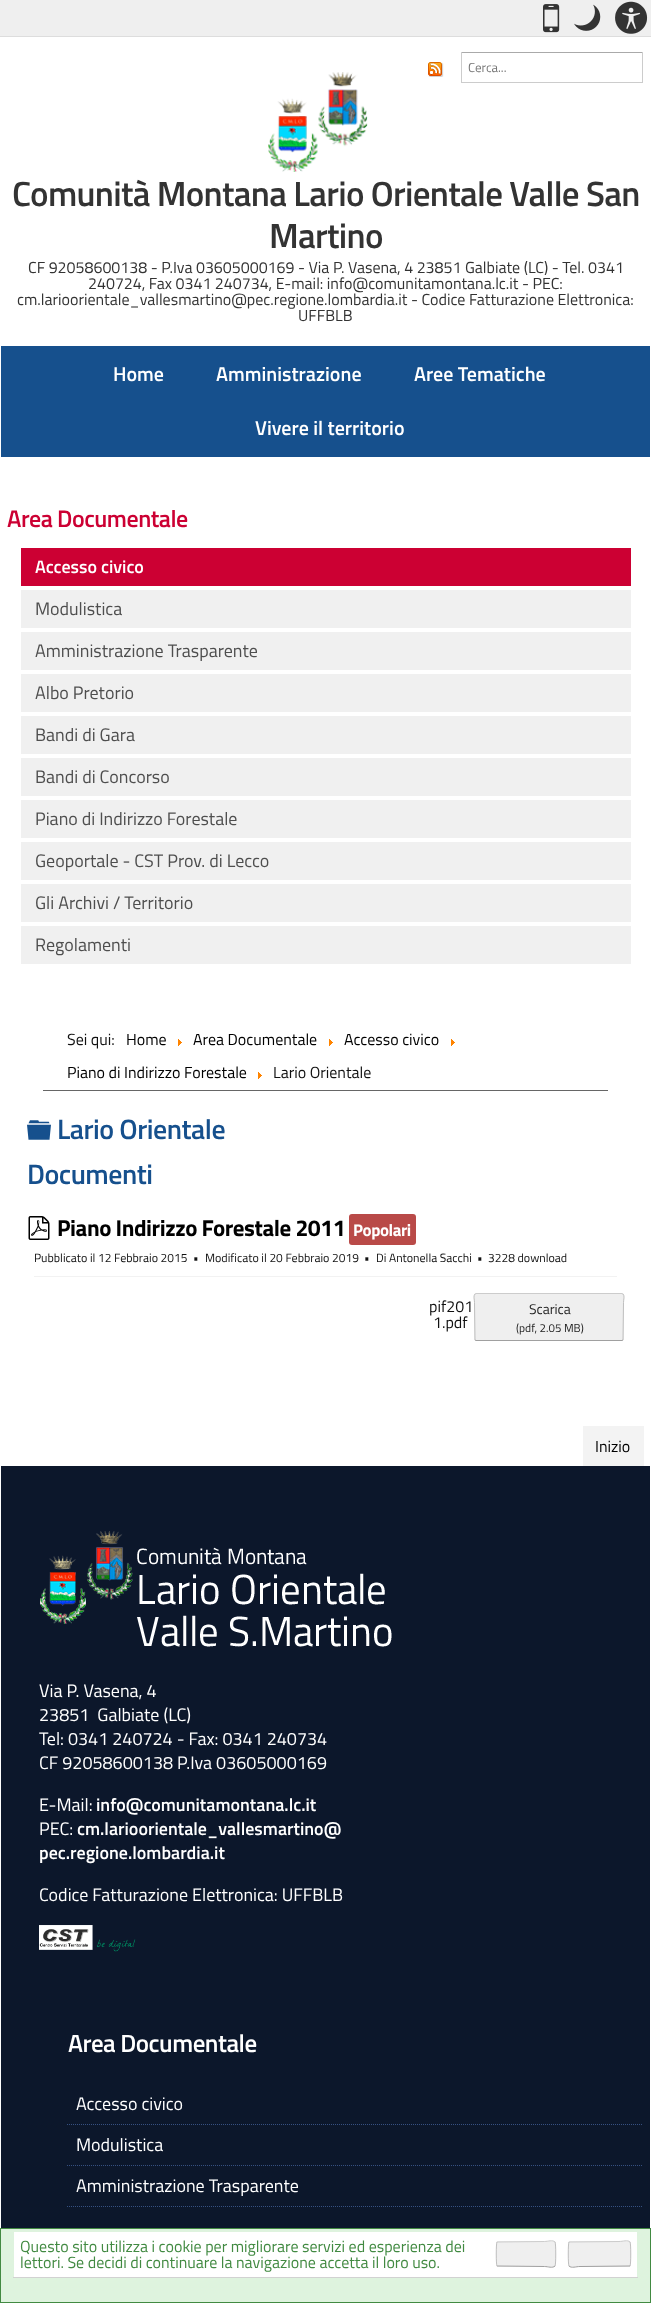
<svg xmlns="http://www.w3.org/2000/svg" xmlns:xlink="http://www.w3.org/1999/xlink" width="651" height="2303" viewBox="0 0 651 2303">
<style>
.cls-1{font:13px Titillium Web;fill:#757575}
.cls-2{font:600 35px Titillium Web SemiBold;letter-spacing:-0.7px;fill:#333333}
.cls-3{font:16px Titillium Web;fill:#333333}
.cls-4{font:600 20px Titillium Web SemiBold;fill:#ffffff}
.cls-5{font:600 24px Titillium Web SemiBold;letter-spacing:-0.5px;fill:#cc0033}
.cls-6{font:600 18px Titillium Web SemiBold;fill:#ffffff}
.cls-7{font:18px Titillium Web;fill:#4e4e4e}
.cls-8{font:16px Titillium Web;fill:#111111}
.cls-9{font:16px Titillium Web;fill:#000000}
.cls-10{font:600 28px Titillium Web SemiBold;letter-spacing:-0.5px;fill:#16508d}
.cls-11{font:bold 23px Titillium Web;letter-spacing:-0.45px;fill:#000000}
.cls-12{font:bold 17px Titillium Web;letter-spacing:-0.45px;fill:#ffffff}
.cls-13{font:12px Titillium Web;fill:#111111}
.cls-14{font:14px Titillium Web;fill:#222222}
.cls-15{font:11.5px Titillium Web;fill:#222222}
.cls-16{font:18px Titillium Web;fill:#ffffff}
.cls-17{font:600 25px Titillium Web SemiBold;letter-spacing:-0.5px;fill:#ffffff}
.cls-18{font:16px Titillium Web;fill:#428a42}
</style>
<rect width="100%" height="100%" fill="#ffffff"/>
<rect fill="#efefef" x="0" y="0" width="651" height="36"/>
<rect fill="#dddddd" x="0" y="36" width="651" height="1"/>
<image xlink:href="image0.png" x="543" y="4" width="17" height="29"/>
<image xlink:href="image1.png" x="574" y="4" width="27" height="27"/>
<image xlink:href="image2.png" x="615" y="1" width="33" height="33"/>
<image xlink:href="image3.png" x="428" y="62" width="16" height="15"/>
<rect fill="#aaaaaa" x="461" y="52" width="182" height="1"/>
<rect fill="#cccccc" x="642" y="52" width="1" height="31"/>
<rect fill="#cccccc" x="461" y="82" width="182" height="1"/>
<rect fill="#cccccc" x="461" y="52" width="1" height="31"/>
<image xlink:href="image4.png" x="268" y="72" width="100" height="100"/>
<rect fill="#16508d" x="1" y="346" width="649" height="111"/>
<rect fill="#cc0033" x="21" y="548" width="610" height="38"/>
<rect fill="#f0f0f0" x="21" y="590" width="610" height="38"/>
<rect fill="#f0f0f0" x="21" y="632" width="610" height="38"/>
<rect fill="#f0f0f0" x="21" y="674" width="610" height="38"/>
<rect fill="#f0f0f0" x="21" y="716" width="610" height="38"/>
<rect fill="#f0f0f0" x="21" y="758" width="610" height="38"/>
<rect fill="#f0f0f0" x="21" y="800" width="610" height="38"/>
<rect fill="#f0f0f0" x="21" y="842" width="610" height="38"/>
<rect fill="#f0f0f0" x="21" y="884" width="610" height="38"/>
<rect fill="#f0f0f0" x="21" y="926" width="610" height="38"/>
<rect fill="#666666" x="43" y="1090" width="565" height="1"/>
<image xlink:href="image5.png" x="178" y="1039" width="4" height="7"/>
<image xlink:href="image5.png" x="329" y="1039" width="4" height="7"/>
<image xlink:href="image5.png" x="451" y="1039" width="4" height="7"/>
<image xlink:href="image5.png" x="258" y="1072" width="4" height="7"/>
<image xlink:href="image6.png" x="27" y="1120" width="24" height="20"/>
<image xlink:href="image7.png" x="28" y="1216" width="22" height="24"/>
<rect fill="#b94a48" x="349" y="1214" width="67" height="31" rx="3"/>
<rect fill="#f2f2f2" x="34" y="1276" width="583" height="1"/>
<rect fill="#efefef" x="474" y="1293" width="150" height="48" rx="2"/>
<path fill="none" stroke="#cccccc" d="M475 1294L476 1293.5H622L623 1294"/>
<path fill="none" stroke="#bfbfbf" d="M623 1294C625 1296 623.5 1299.5 623.5 1302.5L623 1340"/>
<path fill="none" stroke="#a0a0a0" d="M623 1340L622 1340.5H476L475 1340"/>
<path fill="none" stroke="#bfbfbf" d="M475 1340L474.5 1302.5C474.5 1299.5 473 1296 475 1294"/>
<rect fill="#f3f3f3" x="583" y="1426" width="61" height="40"/>
<rect fill="#0c172b" x="1" y="1466" width="649" height="762"/>
<image xlink:href="image8.png" x="40" y="1531" width="352" height="116"/>
<image xlink:href="image9.png" x="39" y="1925" width="97" height="27"/>
<path fill="none" stroke="#355081" stroke-dasharray="1 1" d="M67 2124.5H642"/>
<path fill="none" stroke="#355081" stroke-dasharray="1 1" d="M67 2165.5H642"/>
<path fill="none" stroke="#355081" stroke-dasharray="1 1" d="M67 2206.5H642"/>
<rect fill="#def3de" stroke="#428a42" x="0.5" y="2228.5" width="650" height="74"/>
<rect fill="#ffffff" x="14" y="2232" width="623" height="45"/>
<rect fill="#d2d2d2" x="13" y="2277" width="625" height="1"/>
<rect fill="#efefef" x="496" y="2241" width="60" height="26" rx="2"/>
<path fill="none" stroke="#cccccc" d="M497 2242L544.5 2241.5C548 2241.5 552.5 2239.5 555 2242"/>
<path fill="none" stroke="#bfbfbf" d="M555 2242C556 2243 556 2265 555 2266"/>
<path fill="none" stroke="#a0a0a0" d="M555 2266C552.5 2268.5 548 2266.5 544.5 2266.5L497 2266"/>
<path fill="none" stroke="#bfbfbf" d="M497 2266C496 2265 496 2243 497 2242"/>
<rect fill="#efefef" x="568" y="2241" width="63" height="26" rx="2"/>
<path fill="none" stroke="#cccccc" d="M569 2242L619 2241.5C623 2241.5 627.5 2239.5 630 2242"/>
<path fill="none" stroke="#bfbfbf" d="M630 2242C631 2243 631 2265 630 2266"/>
<path fill="none" stroke="#a0a0a0" d="M630 2266L580 2266.5C576 2266.5 571.5 2268.5 569 2266"/>
<path fill="none" stroke="#bfbfbf" d="M569 2266C568 2265 568 2243 569 2242"/>
<text class="cls-1" x="468" y="72">Cerca...</text>
<text class="cls-2" x="12" y="206">Comunità Montana Lario Orientale Valle San</text>
<text class="cls-2" x="269" y="248">Martino</text>
<text class="cls-3" x="28" y="273">CF 92058600138 - P.Iva 03605000169 - Via P. Vasena, 4 23851 Galbiate (LC) - Tel. 0341</text>
<text class="cls-3" x="88" y="289">240724, Fax 0341 240734, E-mail: info@comunitamontana.lc.it - PEC:</text>
<text class="cls-3" x="17" y="305">cm.larioorientale_vallesmartino@pec.regione.lombardia.it - Codice Fatturazione Elettronica:</text>
<text class="cls-3" x="298" y="321">UFFBLB</text>
<text class="cls-4" x="113" y="381">Home</text>
<text class="cls-4" x="216" y="381">Amministrazione</text>
<text class="cls-4" x="414" y="381">Aree Tematiche</text>
<text class="cls-4" x="255" y="435">Vivere il territorio</text>
<text class="cls-5" x="7" y="527">Area Documentale</text>
<text class="cls-6" x="35" y="573">Accesso civico</text>
<text class="cls-7" x="35" y="615">Modulistica</text>
<text class="cls-7" x="35" y="657">Amministrazione Trasparente</text>
<text class="cls-7" x="35" y="699">Albo Pretorio</text>
<text class="cls-7" x="35" y="741">Bandi di Gara</text>
<text class="cls-7" x="35" y="783">Bandi di Concorso</text>
<text class="cls-7" x="35" y="825">Piano di Indirizzo Forestale</text>
<text class="cls-7" x="35" y="867">Geoportale - CST Prov. di Lecco</text>
<text class="cls-7" x="35" y="909">Gli Archivi / Territorio</text>
<text class="cls-7" x="35" y="951">Regolamenti</text>
<text class="cls-8" x="67" y="1045">Sei qui:</text>
<text class="cls-9" x="126" y="1045">Home</text>
<text class="cls-9" x="193" y="1045">Area Documentale</text>
<text class="cls-9" x="344" y="1045">Accesso civico</text>
<text class="cls-9" x="67" y="1078">Piano di Indirizzo Forestale</text>
<text class="cls-8" x="273" y="1078">Lario Orientale</text>
<text class="cls-10" x="57" y="1139">Lario Orientale</text>
<text class="cls-10" x="27" y="1184">Documenti</text>
<text class="cls-11" x="57" y="1236">Piano Indirizzo Forestale 2011</text>
<text class="cls-12" x="353" y="1236">Popolari</text>
<text class="cls-13" x="34" y="1262">Pubblicato il 12 Febbraio 2015</text>
<text class="cls-13" x="193" y="1262">•</text>
<text class="cls-13" x="205" y="1262">Modificato il 20 Febbraio 2019</text>
<text class="cls-13" x="364" y="1262">•</text>
<text class="cls-13" x="376" y="1262">Di Antonella Sacchi</text>
<text class="cls-13" x="477" y="1262">•</text>
<text class="cls-13" x="488" y="1262">3228 download</text>
<text class="cls-8" x="429" y="1312">pif201</text>
<text class="cls-8" x="433" y="1328">1.pdf</text>
<text class="cls-14" x="529" y="1314">Scarica</text>
<text class="cls-15" x="516" y="1332">(pdf, 2.05 MB)</text>
<text class="cls-9" x="595" y="1452">Inizio</text>
<text class="cls-16" xml:space="preserve"><tspan x="39" y="1697">Via P. Vasena, 4</tspan><tspan x="39" y="1721">23851  Galbiate (LC)</tspan><tspan x="39" y="1745">Tel: 0341 240724 - Fax: 0341 240734</tspan><tspan x="39" y="1769">CF 92058600138 P.Iva 03605000169</tspan></text>
<text class="cls-16" x="39" y="1811">E-Mail:</text>
<text class="cls-6" x="96" y="1811">info@comunitamontana.lc.it</text>
<text class="cls-16" x="39" y="1835">PEC:</text>
<text class="cls-6" x="77" y="1835">cm.larioorientale_vallesmartino@</text>
<text class="cls-6" x="39" y="1859">pec.regione.lombardia.it</text>
<text class="cls-16" x="39" y="1901">Codice Fatturazione Elettronica: UFFBLB</text>
<text class="cls-17" x="68" y="2052">Area Documentale</text>
<text class="cls-16" x="76" y="2110">Accesso civico</text>
<text class="cls-16" x="76" y="2151">Modulistica</text>
<text class="cls-16" x="76" y="2192">Amministrazione Trasparente</text>
<text class="cls-18"><tspan x="20" y="2252">Questo sito utilizza i cookie per migliorare servizi ed esperienza dei</tspan><tspan x="20" y="2268">lettori. Se decidi di continuare la navigazione accetta il loro uso.</tspan></text>
</svg>
